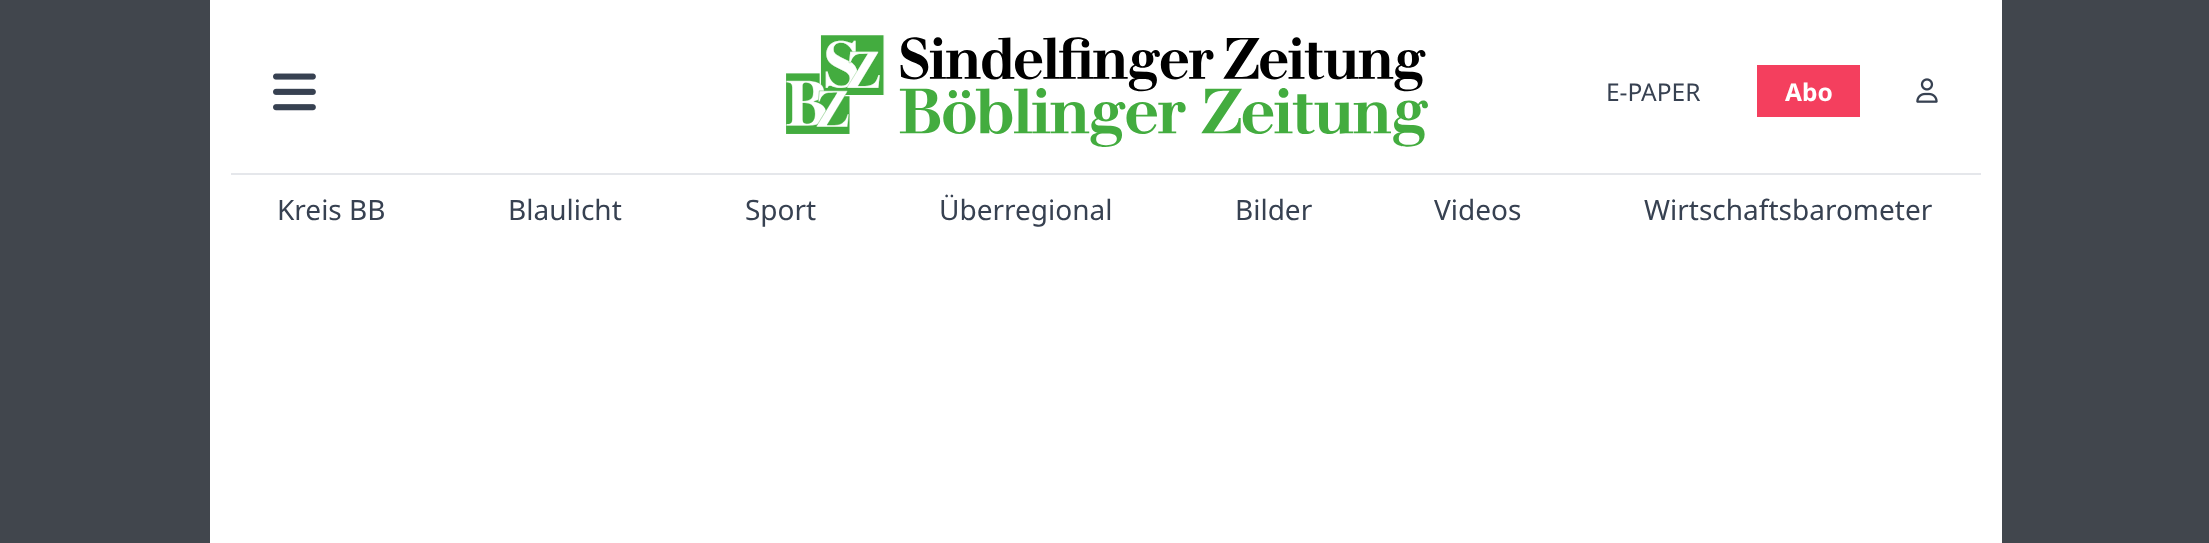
<svg xmlns="http://www.w3.org/2000/svg" xmlns:xlink="http://www.w3.org/1999/xlink" width="2209" height="543" viewBox="0 0 2209 543">
<style>
.cls-1{font:24.5px Noto Sans;fill:#374151}
.cls-2{font:bold 24.5px Noto Sans;fill:#ffffff}
.cls-3{font:28px Noto Sans;fill:#374151}
</style>
<rect width="100%" height="100%" fill="#41464d"/>
<rect fill="#ffffff" x="210" y="0" width="1792" height="543"/>
<image xlink:href="image0.png" x="273" y="73" width="43" height="38"/>
<image xlink:href="image1.png" x="786" y="35" width="642" height="112"/>
<rect fill="#f43f5e" x="1757" y="65" width="103" height="52"/>
<image xlink:href="image2.png" x="1916" y="78" width="22" height="25"/>
<rect fill="#e5e7eb" x="231" y="173" width="1750" height="2"/>
<text class="cls-1" x="1606" y="101">E-PAPER</text>
<text class="cls-2" x="1785" y="101">Abo</text>
<text class="cls-3" x="277" y="220">Kreis BB</text>
<text class="cls-3" x="508" y="220">Blaulicht</text>
<text class="cls-3" x="745" y="220">Sport</text>
<text class="cls-3" x="939" y="220">Überregional</text>
<text class="cls-3" x="1235" y="220">Bilder</text>
<text class="cls-3" x="1434" y="220">Videos</text>
<text class="cls-3" x="1644" y="220">Wirtschaftsbarometer</text>
</svg>
